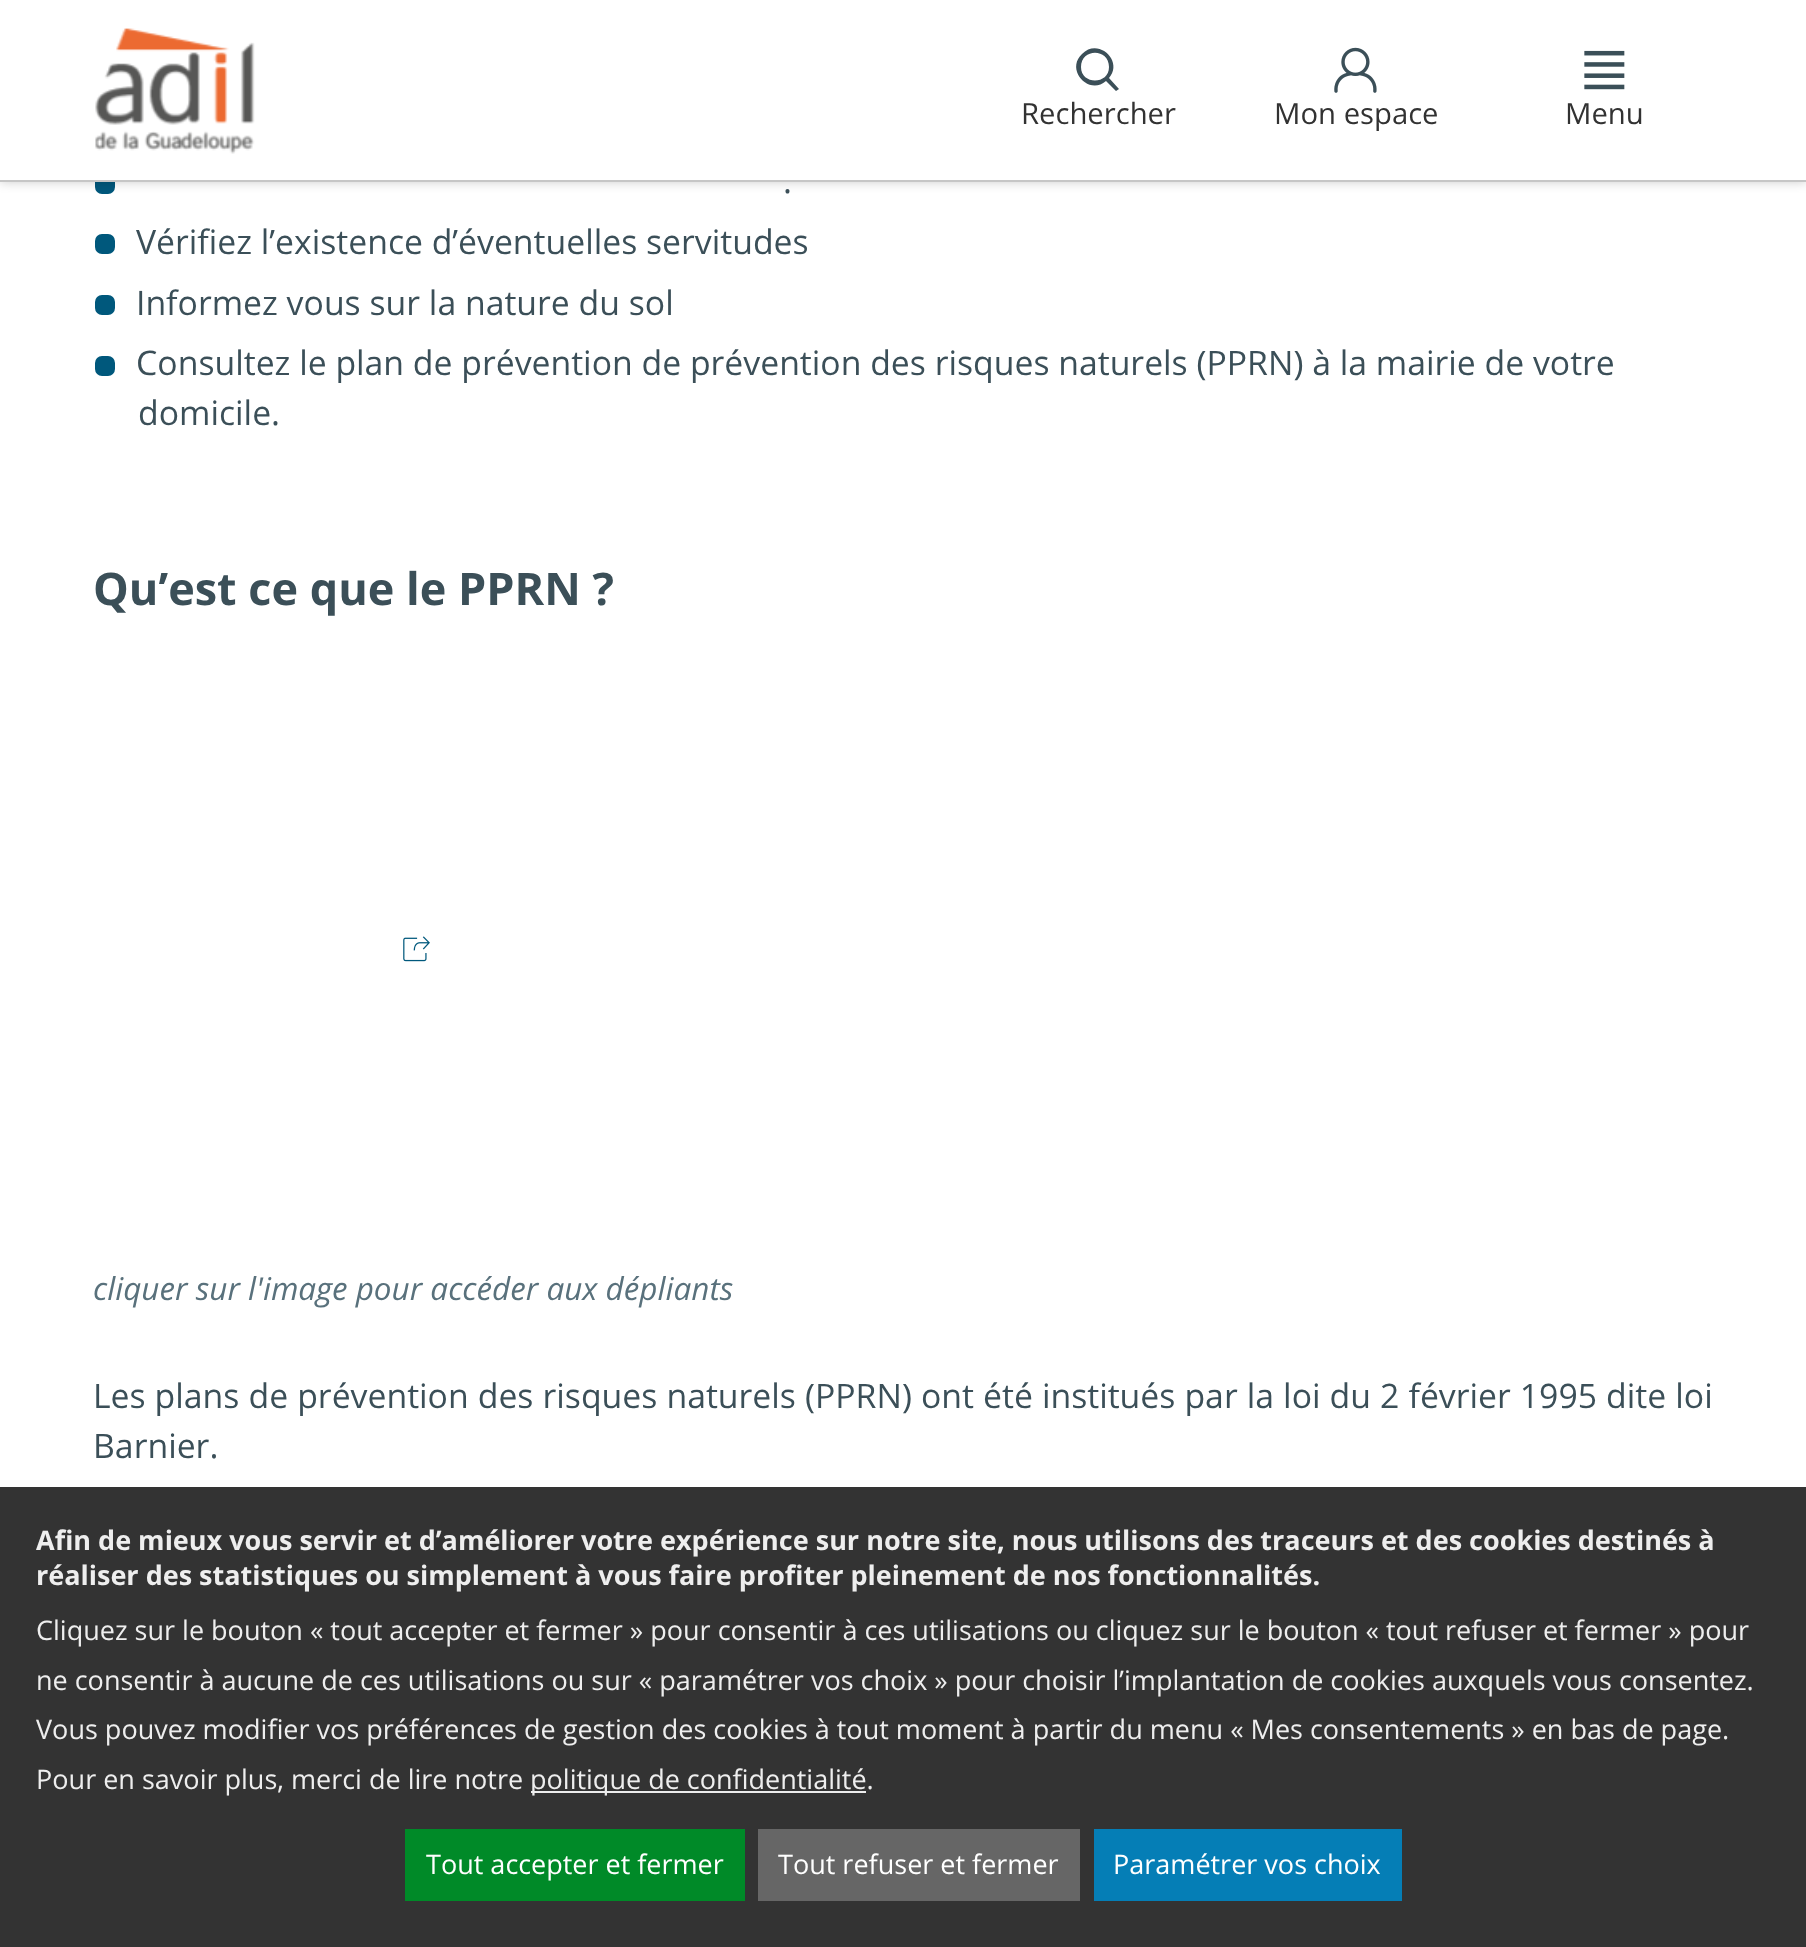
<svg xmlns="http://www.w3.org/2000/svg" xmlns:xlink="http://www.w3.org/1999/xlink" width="1806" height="1947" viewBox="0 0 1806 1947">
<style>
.cls-1{font:29.25px Open Sans;fill:#323232}
.cls-2{font:33.75px Open Sans;fill:#3b4f58}
.cls-3{font:bold 45px Open Sans;fill:#3b4f58}
.cls-4{font:italic 31.5px Open Sans;fill:#59717c}
.cls-5{font:bold 27px Open Sans;fill:#eeeeee}
.cls-6{font:27px Open Sans;fill:#eeeeee}
.cls-7{font:27px Open Sans;fill:#ffffff}
</style>
<rect width="100%" height="100%" fill="#ffffff"/>
<rect fill="#00587c" stroke="#00587c" stroke-width="2" x="96" y="174" width="18" height="19" rx="6"/>
<rect fill="#000000" fill-opacity="0.2" filter="blur(5.5px)" x="0" y="0" width="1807" height="182"/>
<rect fill="#ffffff" x="0" y="0" width="1806" height="180"/>
<rect fill="#c6c6c6" x="0" y="180" width="1806" height="2"/>
<image xlink:href="image0.png" x="95" y="28" width="160" height="126"/>
<path fill="#3b4f58" d="M1116 91L1106 81C1089 96 1065 70 1082 54C1098 37 1124 61 1109 78L1119 89ZM1109 67C1109 48 1081 48 1081 67C1081 85 1109 85 1109 67Z"/>
<image xlink:href="image1.png" x="1334" y="47" width="43" height="46"/>
<image xlink:href="image2.png" x="1584" y="50" width="41" height="40"/>
<rect fill="#00587c" stroke="#00587c" stroke-width="2" x="96" y="235" width="18" height="18" rx="6"/>
<rect fill="#00587c" stroke="#00587c" stroke-width="2" x="96" y="296" width="18" height="18" rx="6"/>
<rect fill="#00587c" stroke="#00587c" stroke-width="2" x="96" y="357" width="18" height="18" rx="6"/>
<image xlink:href="image3.png" x="403" y="936" width="27" height="26"/>
<rect fill="#333333" x="0" y="1487" width="1806" height="460"/>
<rect fill="#eeeeee" x="531" y="1791" width="335" height="2"/>
<rect fill="#008a28" x="405" y="1829" width="340" height="72"/>
<rect fill="#666666" x="758" y="1829" width="322" height="72"/>
<rect fill="#057eb6" x="1094" y="1829" width="308" height="72"/>
<text class="cls-1" x="1021" y="124">Rechercher</text>
<text class="cls-1" x="1274" y="124">Mon espace</text>
<text class="cls-1" x="1565" y="124">Menu</text>
<text class="cls-2" x="783" y="193">.</text>
<text class="cls-2"><tspan x="136" y="254">Vérifiez l’existence d’éventuelles servitudes</tspan><tspan x="136" y="315">Informez vous sur la nature du sol</tspan><tspan x="136" y="375">Consultez le plan de prévention de prévention des risques naturels (PPRN) à la mairie de votre</tspan></text>
<text class="cls-2" x="138" y="425">domicile.</text>
<text class="cls-3" x="93" y="605">Qu’est ce que le PPRN ?</text>
<text class="cls-4" x="93" y="1300">cliquer sur l'image pour accéder aux dépliants</text>
<text class="cls-2"><tspan x="93" y="1408" word-spacing="0.3">Les plans de prévention des risques naturels (PPRN) ont été institués par la loi du 2 février 1995 dite loi</tspan><tspan x="93" y="1458">Barnier.</tspan></text>
<text class="cls-5"><tspan x="36" y="1550">Afin de mieux vous servir et d’améliorer votre expérience sur notre site, nous utilisons des traceurs et des cookies destinés à</tspan><tspan x="36" y="1585">réaliser des statistiques ou simplement à vous faire profiter pleinement de nos fonctionnalités.</tspan></text>
<text class="cls-6"><tspan x="36" y="1640">Cliquez sur le bouton « tout accepter et fermer » pour consentir à ces utilisations ou cliquez sur le bouton « tout refuser et fermer » pour</tspan><tspan x="36" y="1690">ne consentir à aucune de ces utilisations ou sur « paramétrer vos choix » pour choisir l’implantation de cookies auxquels vous consentez.</tspan><tspan x="36" y="1739">Vous pouvez modifier vos préférences de gestion des cookies à tout moment à partir du menu « Mes consentements » en bas de page.</tspan><tspan x="36" y="1789">Pour en savoir plus, merci de lire notre</tspan></text>
<text class="cls-6" x="530" y="1789">politique de confidentialité.</text>
<text class="cls-7" x="426" y="1874">Tout accepter et fermer</text>
<text class="cls-7" x="778" y="1874">Tout refuser et fermer</text>
<text class="cls-7" x="1113" y="1874">Paramétrer vos choix</text>
</svg>
